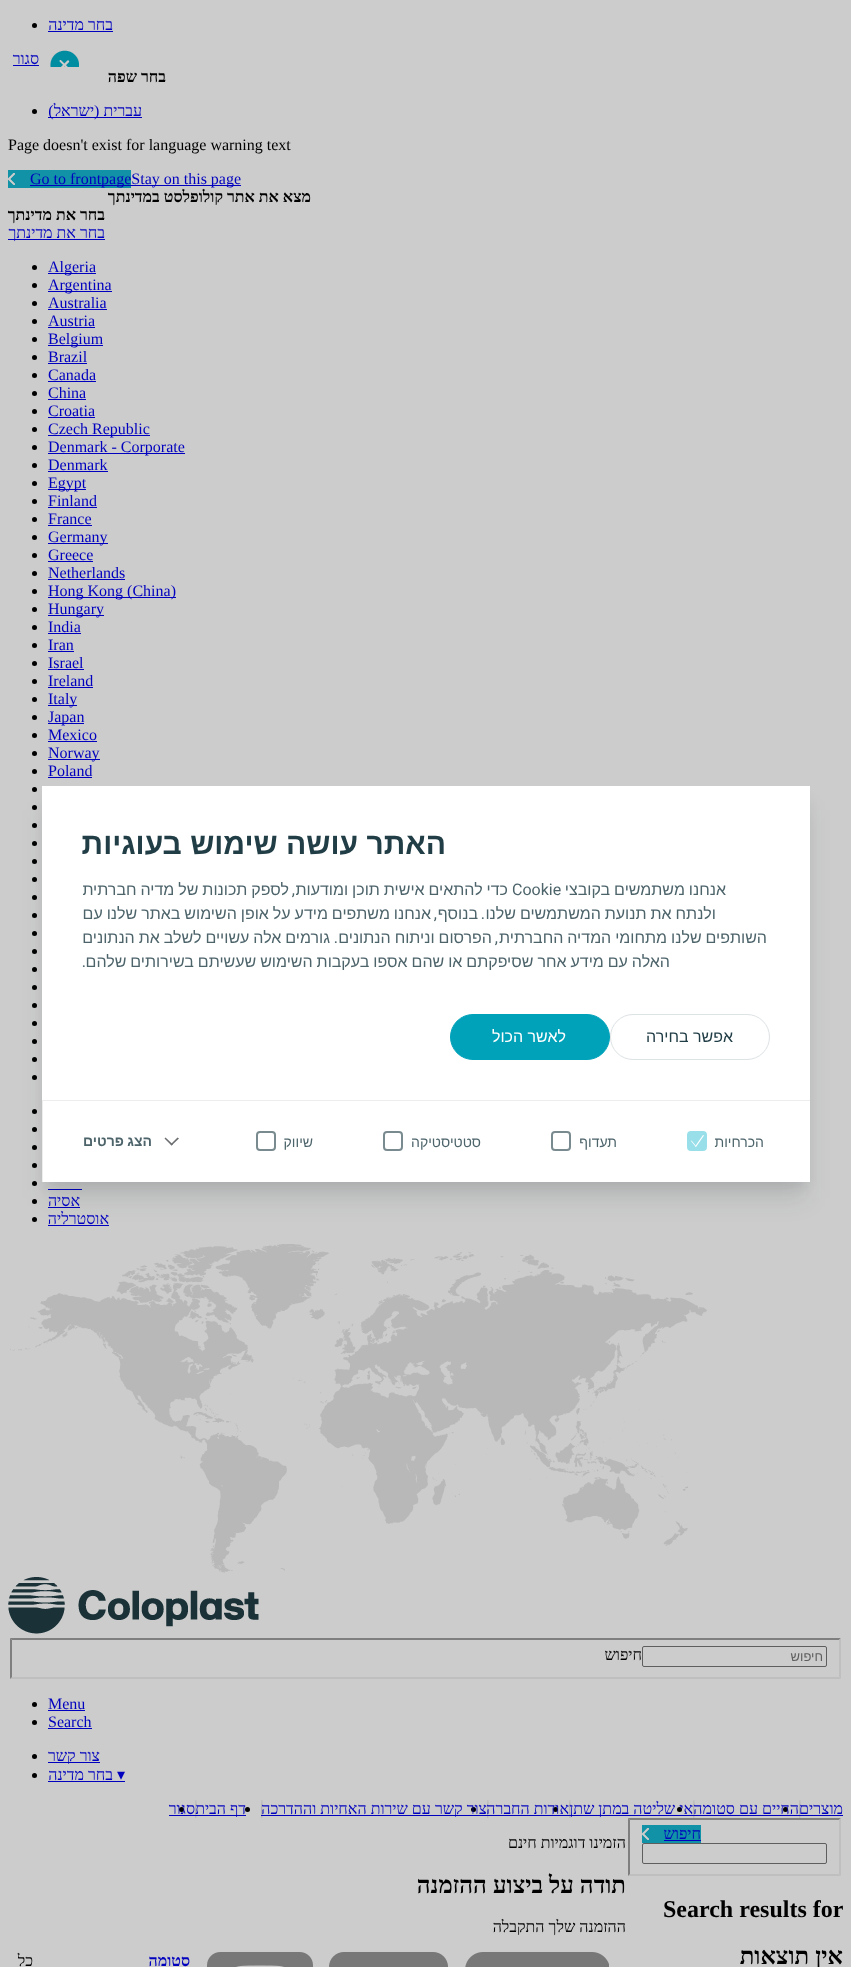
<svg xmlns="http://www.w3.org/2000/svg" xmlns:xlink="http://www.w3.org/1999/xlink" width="851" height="1967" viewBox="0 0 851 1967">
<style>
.cls-1{font:16px Liberation Serif;direction:rtl;fill:#0000be}
.cls-2{font:bold 16px Liberation Serif;direction:rtl;fill:#000000}
.cls-3{font:16px Liberation Serif;fill:#000000}
.cls-4{font:16px Liberation Serif;fill:#0000be}
.cls-5{font:13px Liberation Sans;direction:rtl;fill:#5e5e5e}
.cls-6{font:16px Liberation Serif;direction:rtl;fill:#000000}
.cls-7{font:16px DejaVu Sans;fill:#0000be}
.cls-8{font:bold 24px Liberation Serif;fill:#000000}
.cls-9{font:bold 24px Liberation Serif;direction:rtl;fill:#000000}
.cls-10{font:bold 16px Liberation Serif;direction:rtl;fill:#0000be}
.cls-11{font:bold 30px Liberation Sans;direction:rtl;fill:#213d46}
.cls-12{font:16px Liberation Sans;direction:rtl;fill:#4d646b}
.cls-13{font:16px Roboto;fill:#4d646b}
.cls-14{font:16px Roboto;direction:rtl;fill:#4d646b}
.cls-15{font:16px Liberation Sans;direction:rtl;fill:#213d46}
.cls-16{font:16px Liberation Sans;direction:rtl;fill:#ffffff}
.cls-17{font:14px Liberation Sans;direction:rtl;fill:#4d646b}
.cls-18{font:bold 14px Liberation Sans;direction:rtl;fill:#4d646b}
</style>
<rect width="100%" height="100%" fill="#cccccc"/>
<rect fill="#0000be" x="48" y="31" width="65" height="1"/>
<circle fill="#000000" cx="34.5" cy="25.5" r="2.5"/>
<image xlink:href="image0.png" x="50" y="50" width="29" height="17"/>
<rect fill="#0000be" x="13" y="65" width="26" height="1"/>
<rect fill="#0000be" x="48" y="117" width="94" height="1"/>
<circle fill="#000000" cx="34.5" cy="111.5" r="2.5"/>
<rect fill="#1292a6" x="8" y="170" width="123" height="18"/>
<image xlink:href="image1.png" x="8" y="173" width="7" height="12"/>
<rect fill="#0000be" x="30" y="185" width="211" height="1"/>
<rect fill="#0000be" x="8" y="239" width="97" height="1"/>
<rect fill="#0000be" x="48" y="273" width="48" height="1"/>
<circle fill="#000000" cx="34.5" cy="267.5" r="2.5"/>
<rect fill="#0000be" x="48" y="291" width="64" height="1"/>
<circle fill="#000000" cx="34.5" cy="285.5" r="2.5"/>
<rect fill="#0000be" x="48" y="309" width="59" height="1"/>
<circle fill="#000000" cx="34.5" cy="303.5" r="2.5"/>
<rect fill="#0000be" x="48" y="327" width="47" height="1"/>
<circle fill="#000000" cx="34.5" cy="321.5" r="2.5"/>
<rect fill="#0000be" x="48" y="345" width="55" height="1"/>
<circle fill="#000000" cx="34.5" cy="339.5" r="2.5"/>
<rect fill="#0000be" x="48" y="363" width="39" height="1"/>
<circle fill="#000000" cx="34.5" cy="357.5" r="2.5"/>
<rect fill="#0000be" x="48" y="381" width="48" height="1"/>
<circle fill="#000000" cx="34.5" cy="375.5" r="2.5"/>
<rect fill="#0000be" x="48" y="399" width="38" height="1"/>
<circle fill="#000000" cx="34.5" cy="393.5" r="2.5"/>
<rect fill="#0000be" x="48" y="417" width="47" height="1"/>
<circle fill="#000000" cx="34.5" cy="411.5" r="2.5"/>
<rect fill="#0000be" x="48" y="435" width="102" height="1"/>
<circle fill="#000000" cx="34.5" cy="429.5" r="2.5"/>
<rect fill="#0000be" x="48" y="453" width="137" height="1"/>
<circle fill="#000000" cx="34.5" cy="447.5" r="2.5"/>
<rect fill="#0000be" x="48" y="471" width="60" height="1"/>
<circle fill="#000000" cx="34.5" cy="465.5" r="2.5"/>
<rect fill="#0000be" x="48" y="489" width="38" height="1"/>
<circle fill="#000000" cx="34.5" cy="483.5" r="2.5"/>
<rect fill="#0000be" x="48" y="507" width="49" height="1"/>
<circle fill="#000000" cx="34.5" cy="501.5" r="2.5"/>
<rect fill="#0000be" x="48" y="525" width="44" height="1"/>
<circle fill="#000000" cx="34.5" cy="519.5" r="2.5"/>
<rect fill="#0000be" x="48" y="543" width="60" height="1"/>
<circle fill="#000000" cx="34.5" cy="537.5" r="2.5"/>
<rect fill="#0000be" x="48" y="561" width="45" height="1"/>
<circle fill="#000000" cx="34.5" cy="555.5" r="2.5"/>
<rect fill="#0000be" x="48" y="579" width="77" height="1"/>
<circle fill="#000000" cx="34.5" cy="573.5" r="2.5"/>
<rect fill="#0000be" x="48" y="597" width="128" height="1"/>
<circle fill="#000000" cx="34.5" cy="591.5" r="2.5"/>
<rect fill="#0000be" x="48" y="615" width="56" height="1"/>
<circle fill="#000000" cx="34.5" cy="609.5" r="2.5"/>
<rect fill="#0000be" x="48" y="633" width="33" height="1"/>
<circle fill="#000000" cx="34.5" cy="627.5" r="2.5"/>
<rect fill="#0000be" x="48" y="651" width="26" height="1"/>
<circle fill="#000000" cx="34.5" cy="645.5" r="2.5"/>
<rect fill="#0000be" x="48" y="669" width="36" height="1"/>
<circle fill="#000000" cx="34.5" cy="663.5" r="2.5"/>
<rect fill="#0000be" x="48" y="687" width="45" height="1"/>
<circle fill="#000000" cx="34.5" cy="681.5" r="2.5"/>
<rect fill="#0000be" x="48" y="705" width="29" height="1"/>
<circle fill="#000000" cx="34.5" cy="699.5" r="2.5"/>
<rect fill="#0000be" x="48" y="723" width="36" height="1"/>
<circle fill="#000000" cx="34.5" cy="717.5" r="2.5"/>
<rect fill="#0000be" x="48" y="741" width="49" height="1"/>
<circle fill="#000000" cx="34.5" cy="735.5" r="2.5"/>
<rect fill="#0000be" x="48" y="759" width="52" height="1"/>
<circle fill="#000000" cx="34.5" cy="753.5" r="2.5"/>
<rect fill="#0000be" x="48" y="777" width="44" height="1"/>
<circle fill="#000000" cx="34.5" cy="771.5" r="2.5"/>
<circle fill="#000000" cx="34.5" cy="789.5" r="2.5"/>
<circle fill="#000000" cx="34.5" cy="807.5" r="2.5"/>
<circle fill="#000000" cx="34.5" cy="825.5" r="2.5"/>
<circle fill="#000000" cx="34.5" cy="843.5" r="2.5"/>
<circle fill="#000000" cx="34.5" cy="861.5" r="2.5"/>
<circle fill="#000000" cx="34.5" cy="879.5" r="2.5"/>
<circle fill="#000000" cx="34.5" cy="897.5" r="2.5"/>
<circle fill="#000000" cx="34.5" cy="915.5" r="2.5"/>
<circle fill="#000000" cx="34.5" cy="933.5" r="2.5"/>
<circle fill="#000000" cx="34.5" cy="951.5" r="2.5"/>
<circle fill="#000000" cx="34.5" cy="969.5" r="2.5"/>
<circle fill="#000000" cx="34.5" cy="987.5" r="2.5"/>
<circle fill="#000000" cx="34.5" cy="1005.5" r="2.5"/>
<circle fill="#000000" cx="34.5" cy="1023.5" r="2.5"/>
<circle fill="#000000" cx="34.5" cy="1041.5" r="2.5"/>
<circle fill="#000000" cx="34.5" cy="1059.5" r="2.5"/>
<circle fill="#000000" cx="34.5" cy="1077.5" r="2.5"/>
<circle fill="#000000" cx="34.5" cy="1111.5" r="2.5"/>
<circle fill="#000000" cx="34.5" cy="1129.5" r="2.5"/>
<circle fill="#000000" cx="34.5" cy="1147.5" r="2.5"/>
<circle fill="#000000" cx="34.5" cy="1165.5" r="2.5"/>
<circle fill="#000000" cx="34.5" cy="1183.5" r="2.5"/>
<rect fill="#0000be" x="48" y="1189" width="34" height="1"/>
<rect fill="#0000be" x="48" y="1207" width="32" height="1"/>
<circle fill="#000000" cx="34.5" cy="1201.5" r="2.5"/>
<rect fill="#0000be" x="48" y="1225" width="61" height="1"/>
<circle fill="#000000" cx="34.5" cy="1219.5" r="2.5"/>
<image xlink:href="image2.png" x="10" y="1244" width="697" height="329"/>
<image xlink:href="image3.png" x="8" y="1577" width="251" height="57"/>
<path fill="#7f7f7f" d="M10 1638H841L839 1640H12Z"/>
<path fill="#bfbfbf" d="M841 1638V1679L839 1677V1640Z"/>
<path fill="#bfbfbf" d="M841 1679H10L12 1677H839Z"/>
<path fill="#7f7f7f" d="M10 1679V1638L12 1640V1677Z"/>
<rect fill="none" stroke="#5e5e5e" x="642.5" y="1646.5" width="184" height="20" rx="1.5"/>
<rect fill="#0000be" x="48" y="1710" width="37" height="1"/>
<circle fill="#000000" cx="34.5" cy="1704.5" r="2.5"/>
<rect fill="#0000be" x="48" y="1728" width="44" height="1"/>
<circle fill="#000000" cx="34.5" cy="1722.5" r="2.5"/>
<rect fill="#0000be" x="48" y="1762" width="52" height="1"/>
<circle fill="#000000" cx="34.5" cy="1756.5" r="2.5"/>
<rect fill="#0000be" x="48" y="1781" width="77" height="1"/>
<circle fill="#000000" cx="34.5" cy="1775.5" r="2.5"/>
<image xlink:href="image4.png" x="799" y="1800" width="2" height="18"/>
<rect fill="#0000be" x="799" y="1815" width="44" height="1"/>
<circle fill="#000000" cx="785.5" cy="1809.5" r="2.5"/>
<image xlink:href="image4.png" x="693" y="1800" width="2" height="18"/>
<rect fill="#0000be" x="693" y="1815" width="106" height="1"/>
<circle fill="#000000" cx="679.5" cy="1809.5" r="2.5"/>
<image xlink:href="image4.png" x="569" y="1800" width="2" height="18"/>
<rect fill="#0000be" x="569" y="1815" width="124" height="1"/>
<circle fill="#000000" cx="555.5" cy="1809.5" r="2.5"/>
<image xlink:href="image4.png" x="487" y="1800" width="2" height="18"/>
<rect fill="#0000be" x="487" y="1815" width="82" height="1"/>
<circle fill="#000000" cx="473.5" cy="1809.5" r="2.5"/>
<image xlink:href="image4.png" x="261" y="1800" width="2" height="18"/>
<rect fill="#0000be" x="261" y="1815" width="226" height="1"/>
<circle fill="#000000" cx="247.5" cy="1809.5" r="2.5"/>
<image xlink:href="image4.png" x="195" y="1800" width="2" height="18"/>
<rect fill="#0000be" x="169" y="1815" width="77" height="1"/>
<circle fill="#000000" cx="181.5" cy="1809.5" r="2.5"/>
<path fill="#7f7f7f" d="M628 1818H841L839 1820H630Z"/>
<path fill="#bfbfbf" d="M841 1818V1876L839 1874V1820Z"/>
<path fill="#bfbfbf" d="M841 1876H628L630 1874H839Z"/>
<path fill="#7f7f7f" d="M628 1876V1818L630 1820V1874Z"/>
<rect fill="#1292a6" x="642" y="1825" width="59" height="18"/>
<image xlink:href="image1.png" x="642" y="1828" width="7" height="12"/>
<rect fill="#0000be" x="664" y="1840" width="37" height="1"/>
<rect fill="none" stroke="#5e5e5e" x="642.5" y="1843.5" width="184" height="20" rx="1.5"/>
<image xlink:href="image5.png" x="465" y="1952" width="144" height="15"/>
<image xlink:href="image6.png" x="329" y="1952" width="119" height="15"/>
<image xlink:href="image7.png" x="207" y="1952" width="106" height="15"/>
<rect fill="#15272d" fill-opacity="0.12" filter="blur(12px)" x="46" y="810" width="760" height="388"/>
<rect fill="#15272d" fill-opacity="0.08" filter="blur(6px)" x="46" y="798" width="760" height="388"/>
<rect fill="#ffffff" x="42" y="786" width="768" height="396"/>
<rect fill="none" stroke="#dde2e4" x="610.5" y="1014.5" width="159" height="45" rx="22.5"/>
<rect fill="#00a2ba" stroke="#00a2ba" x="450.5" y="1014.5" width="159" height="45" rx="22.5"/>
<rect fill="#ededed" x="42" y="1100" width="768" height="1"/>
<rect fill="#99dfea" stroke="#99dfea" stroke-width="2" x="688" y="1132" width="18" height="18" rx="3"/>
<path fill="#ffffff" d="M703 1135L704 1135.5L696 1147L695 1146.5Z"/>
<path fill="#ffffff" d="M691 1141L691.5 1140.5L696 1146L695.5 1146.5Z"/>
<rect fill="none" stroke="#7a8b90" stroke-width="2" x="552" y="1132" width="18" height="18" rx="3"/>
<rect fill="none" stroke="#7a8b90" stroke-width="2" x="384" y="1132" width="18" height="18" rx="3"/>
<rect fill="none" stroke="#7a8b90" stroke-width="2" x="257" y="1132" width="18" height="18" rx="3"/>
<rect fill="#ededed" x="42" y="1101" width="1" height="81"/>
<path fill="#6c6f70" d="M164.5 1138.5L165.5 1137.5L173 1144.5L171.5 1145.5Z"/>
<path fill="#6c6f70" d="M177.5 1137.5L179 1138.5L171.5 1145.5L170.5 1144.5Z"/>
<text class="cls-1" x="113" y="30">בחר מדינה</text>
<text class="cls-1" x="39" y="64">סגור</text>
<text class="cls-2" x="166" y="82">בחר שפה</text>
<text class="cls-1" x="142" y="116">עברית (ישראל)</text>
<text class="cls-3" x="8" y="150">Page doesn't exist for language warning text</text>
<text class="cls-4" x="30" y="184">Go to frontpageStay on this page</text>
<text class="cls-2" x="311" y="202">מצא את אתר קולופלסט במדינתך</text>
<text class="cls-2" x="105" y="220">בחר את מדינתך</text>
<text class="cls-1" x="105" y="238">בחר את מדינתך</text>
<text class="cls-4"><tspan x="48" y="272">Algeria</tspan><tspan x="48" y="290">Argentina</tspan><tspan x="48" y="308">Australia</tspan><tspan x="48" y="326">Austria</tspan><tspan x="48" y="344">Belgium</tspan><tspan x="48" y="362">Brazil</tspan><tspan x="48" y="380">Canada</tspan><tspan x="48" y="398">China</tspan><tspan x="48" y="416">Croatia</tspan><tspan x="48" y="434">Czech Republic</tspan><tspan x="48" y="452">Denmark - Corporate</tspan><tspan x="48" y="470">Denmark</tspan><tspan x="48" y="488">Egypt</tspan><tspan x="48" y="506">Finland</tspan><tspan x="48" y="524">France</tspan><tspan x="48" y="542">Germany</tspan><tspan x="48" y="560">Greece</tspan><tspan x="48" y="578">Netherlands</tspan><tspan x="48" y="596">Hong Kong (China)</tspan><tspan x="48" y="614">Hungary</tspan><tspan x="48" y="632">India</tspan><tspan x="48" y="650">Iran</tspan><tspan x="48" y="668">Israel</tspan><tspan x="48" y="686">Ireland</tspan><tspan x="48" y="704">Italy</tspan><tspan x="48" y="722">Japan</tspan><tspan x="48" y="740">Mexico</tspan><tspan x="48" y="758">Norway</tspan><tspan x="48" y="776">Poland</tspan></text>
<text class="cls-1" x="80" y="1206">אסיה</text>
<text class="cls-1" x="109" y="1224">אוסטרליה</text>
<text class="cls-5" x="823" y="1661">חיפוש</text>
<text class="cls-6" x="642" y="1660">חיפוש</text>
<text class="cls-4"><tspan x="48" y="1709">Menu</tspan><tspan x="48" y="1727">Search</tspan></text>
<text class="cls-1" x="100" y="1761">צור קשר</text>
<text class="cls-7" x="117" y="1780">▾</text>
<text class="cls-1" x="113" y="1780">בחר מדינה</text>
<text class="cls-1" x="843" y="1814">מוצרים</text>
<text class="cls-1" x="799" y="1814">החיים עם סטומה</text>
<text class="cls-1" x="693" y="1814">אי שליטה במתן שתן</text>
<text class="cls-1" x="569" y="1814">אודות החברה</text>
<text class="cls-1" x="487" y="1814">צור קשר עם שירות האחיות וההדרכה</text>
<text class="cls-1" x="246" y="1814">דף הבית</text>
<text class="cls-1" x="701" y="1839">חיפוש</text>
<text class="cls-8" x="663" y="1917">Search results for</text>
<text class="cls-9" x="843" y="1964">אין תוצאות</text>
<text class="cls-1" x="195" y="1814">סגור</text>
<text class="cls-6" x="626" y="1848">הזמינו דוגמיות חינם</text>
<text class="cls-9" x="626" y="1893">תודה על ביצוע ההזמנה</text>
<text class="cls-6" x="626" y="1932">ההזמנה שלך התקבלה</text>
<text class="cls-10" x="190" y="1966">סטומה</text>
<text class="cls-6" x="33" y="1966">כל</text>
<text class="cls-11" x="446" y="854">האתר עושה שימוש בעוגיות</text>
<text class="cls-12" x="726" y="895" word-spacing="-0.5">אנחנו משתמשים בקובצי</text>
<text class="cls-13" x="512" y="895">Cookie</text>
<text class="cls-12" x="508" y="895" word-spacing="-0.5">כדי להתאים אישית תוכן ומודעות</text>
<text class="cls-14" x="295" y="895">,</text>
<text class="cls-12" x="289" y="895" word-spacing="-0.5">לספק תכונות של מדיה חברתית</text>
<text class="cls-12" x="716" y="919" word-spacing="-0.5">ולנתח את תנועת המשתמשים שלנו</text>
<text class="cls-14" x="485" y="919">.</text>
<text class="cls-12" x="478" y="919">בנוסף</text>
<text class="cls-14" x="437" y="919">,</text>
<text class="cls-12" x="431" y="919" word-spacing="-0.5">אנחנו משתפים מידע על אופן השימוש באתר שלנו עם</text>
<text class="cls-12" x="767" y="943" word-spacing="-0.5">השותפים שלנו מתחומי המדיה החברתית</text>
<text class="cls-14" x="498" y="943">,</text>
<text class="cls-12" x="492" y="943" word-spacing="-0.5">הפרסום וניתוח הנתונים</text>
<text class="cls-14" x="338" y="943">.</text>
<text class="cls-12" x="330" y="943" word-spacing="-0.5">גורמים אלה עשויים לשלב את הנתונים</text>
<text class="cls-12" x="670" y="967" word-spacing="-0.5">האלה עם מידע אחר שסיפקתם או שהם אספו בעקבות השימוש שעשיתם בשירותים שלהם</text>
<text class="cls-14" x="86" y="967">.</text>
<text class="cls-15" x="733" y="1042">אפשר בחירה</text>
<text class="cls-16" x="566" y="1042">לאשר הכול</text>
<text class="cls-17" x="764" y="1147">הכרחיות</text>
<text class="cls-17" x="617" y="1147">תעדוף</text>
<text class="cls-17" x="481" y="1147">סטטיסטיקה</text>
<text class="cls-17" x="313" y="1147">שיווק</text>
<text class="cls-18" x="152" y="1146" word-spacing="-0.5">הצג פרטים</text>
</svg>
